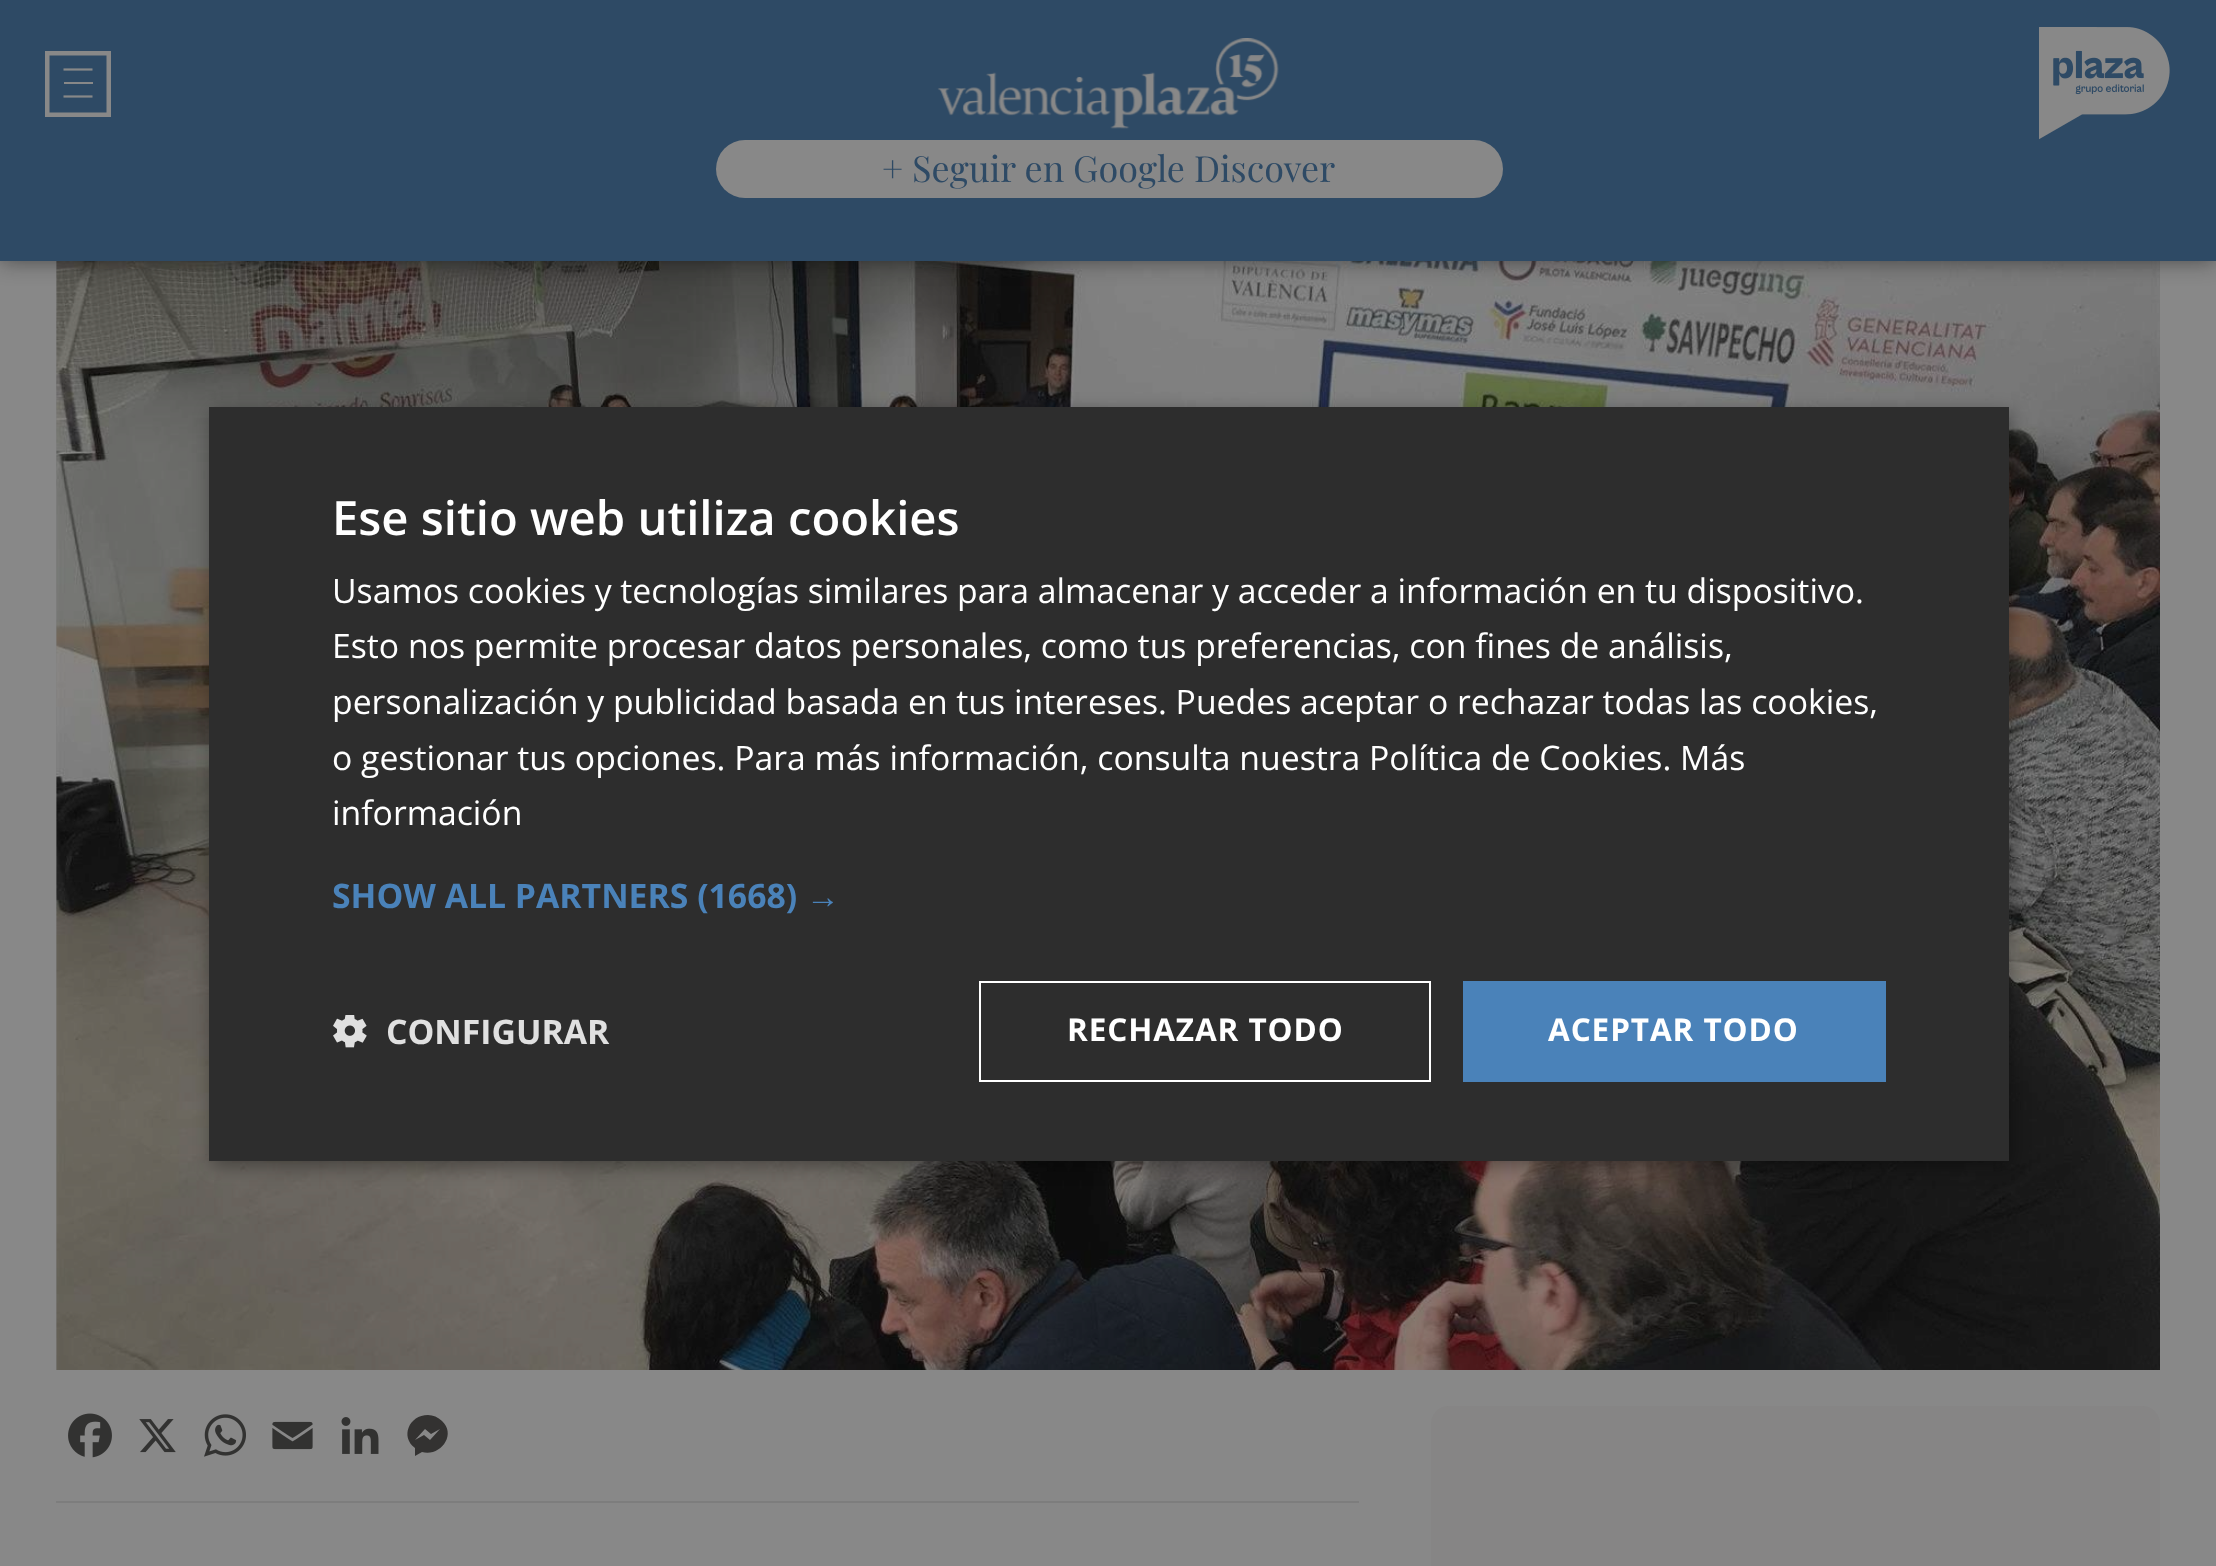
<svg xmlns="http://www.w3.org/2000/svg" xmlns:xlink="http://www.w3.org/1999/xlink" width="2216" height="1566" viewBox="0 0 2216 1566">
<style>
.cls-1{font:36px Playfair Display;fill:#2e4a65}
.cls-2{font:600 47.25px Open Sans;fill:#ffffff}
.cls-3{font:33.75px Open Sans;fill:#ffffff}
.cls-4{font:bold 33.75px Open Sans;fill:#4a82b9}
.cls-5{font:bold 33.75px Liberation Sans;fill:#4a82b9}
.cls-6{font:bold 33.75px Open Sans;fill:#e0e0e0}
.cls-7{font:bold 31.5px Open Sans;letter-spacing:0.9px;fill:#ffffff}
</style>
<rect width="100%" height="100%" fill="#888888"/>
<rect fill="#818181" x="56" y="261" width="1" height="1109"/>
<image xlink:href="image2.png" x="56" y="261" width="2104" height="1109"/>
<rect fill="#090909" fill-opacity="0.5" filter="blur(11px)" x="0" y="0" width="2216" height="261"/>
<rect fill="#2e4a65" x="0" y="0" width="2216" height="261"/>
<rect fill="none" stroke="#888888" stroke-width="4.5" x="47.25" y="53.25" width="61.5" height="61.5"/>
<path fill="none" stroke="#888888" stroke-width="2.2" d="M63.5 69.5H92.5"/>
<rect fill="#888888" x="64" y="82" width="29" height="2"/>
<path fill="none" stroke="#888888" stroke-width="2.2" d="M63.5 96.5H92.5"/>
<image xlink:href="image0.png" x="937" y="38" width="342" height="91"/>
<image xlink:href="image1.png" x="2039" y="27" width="131" height="113"/>
<rect fill="#888888" x="716" y="140" width="787" height="58" rx="29"/>
<rect fill="#7d7d7d" x="56" y="1501" width="1303" height="2"/>
<image xlink:href="image3.png" x="68" y="1413" width="44" height="45"/>
<image xlink:href="image4.png" x="139" y="1419" width="37" height="34"/>
<image xlink:href="image5.png" x="204" y="1414" width="42" height="43"/>
<image xlink:href="image6.png" x="272" y="1421" width="41" height="29"/>
<image xlink:href="image7.png" x="341" y="1417" width="38" height="37"/>
<path fill="#333231" d="M428 1415C409 1415 400 1437 415 1448V1456L422 1452C440 1457 457 1435 442 1421C438 1417 433 1415 428 1415M430 1440L424 1435L415 1440L425 1429L431 1434L440 1429Z"/>
<rect fill="#868585" x="1431" y="1406" width="729" height="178" rx="18"/>
<rect fill="#000000" fill-opacity="0.35" filter="blur(9px)" x="212" y="412" width="1800" height="754"/>
<rect fill="#2d2d2d" x="209" y="407" width="1800" height="754"/>
<image xlink:href="image8.png" x="333" y="1015" width="34" height="33"/>
<rect fill="none" stroke="#ffffff" stroke-width="2" x="980" y="982" width="450" height="99"/>
<rect fill="#4a82b9" x="1463" y="981" width="423" height="101"/>
<text class="cls-1" x="882" y="182">+ Seguir en Google Discover</text>
<text class="cls-2" x="332" y="535">Ese sitio web utiliza cookies</text>
<text class="cls-3"><tspan x="332" y="603">Usamos cookies y tecnologías similares para almacenar y acceder a información en tu dispositivo.</tspan><tspan x="332" y="658">Esto nos permite procesar datos personales, como tus preferencias, con fines de análisis,</tspan><tspan x="332" y="714">personalización y publicidad basada en tus intereses. Puedes aceptar o rechazar todas las cookies,</tspan><tspan x="332" y="770">o gestionar tus opciones. Para más información, consulta nuestra Política de Cookies. Más</tspan><tspan x="332" y="825">información</tspan></text>
<text class="cls-4" x="332" y="908">SHOW ALL PARTNERS (1668)</text>
<text class="cls-5" x="806" y="908">→</text>
<text class="cls-6" x="386" y="1044">CONFIGURAR</text>
<text class="cls-7" x="1067" y="1041">RECHAZAR TODO</text>
<text class="cls-7" x="1548" y="1041">ACEPTAR TODO</text>
</svg>
